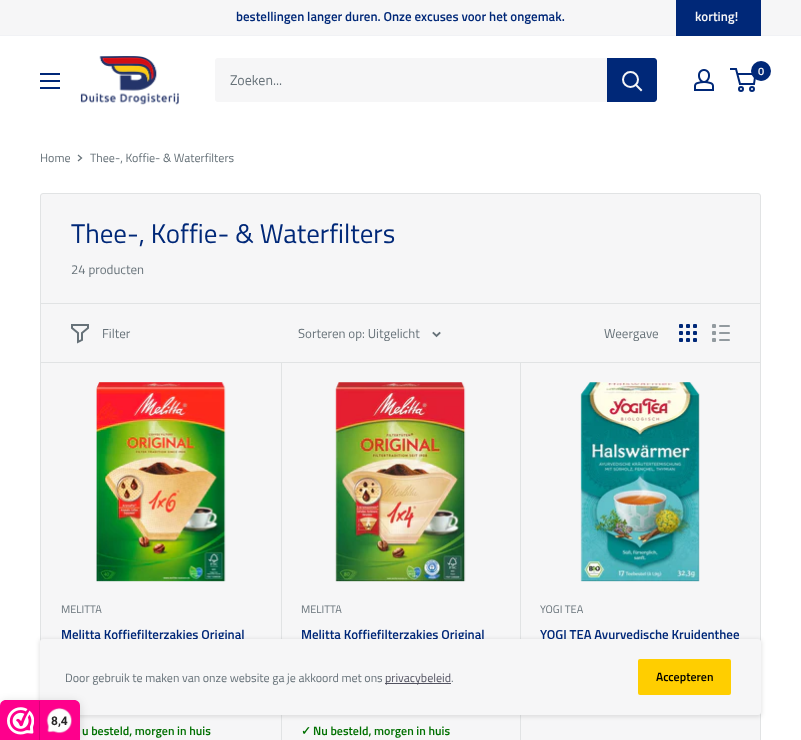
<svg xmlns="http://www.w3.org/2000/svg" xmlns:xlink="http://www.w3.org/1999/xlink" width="801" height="740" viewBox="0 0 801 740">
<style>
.cls-1{font:600 13px Titillium Web;fill:#002878}
.cls-2{font:600 13px Titillium Web;fill:#f6f6f7}
.cls-3{font:600 11px Titillium Web;fill:#f6f6f7}
.cls-4{font:14px Titillium Web;fill:#677279}
.cls-5{font:12px Titillium Web;fill:#677279}
.cls-6{font:27px Titillium Web;fill:#002878}
.cls-7{font:13px Titillium Web;fill:#677279}
.cls-8{font:11px Titillium Web;fill:#677279}
.cls-9{font:600 12px Titillium Web;fill:#007000}
.cls-10{font:bold 12px DejaVu Sans;fill:#007000}
.cls-11{font:12px Titillium Web;fill:#525260}
.cls-12{font:600 12px Titillium Web;fill:#000000}
.cls-13{font:bold 12px Roboto;fill:#272626}
</style>
<rect width="100%" height="100%" fill="#ffffff"/>
<rect fill="#f6f6f7" x="0" y="0" width="801" height="35"/>
<rect fill="#f1f2f5" x="0" y="35" width="801" height="1"/>
<rect fill="#002878" x="676" y="0" width="85" height="36"/>
<image xlink:href="image0.png" x="80" y="56" width="99" height="49"/>
<image xlink:href="image1.png" x="694" y="69" width="20" height="22"/>
<circle fill="none" stroke="#002878" stroke-width="2" cx="741" cy="89" r="2"/>
<circle fill="none" stroke="#002878" stroke-width="2" cx="752" cy="89" r="2"/>
<path fill="none" stroke="#002878" stroke-width="2" d="M737.5 74H755.5L754 84H740L736 69H730"/>
<circle fill="#002878" cx="761" cy="71" r="10"/>
<image xlink:href="image2.png" x="40" y="73" width="20" height="16"/>
<rect fill="#f6f6f7" x="215" y="58" width="442" height="44" rx="3"/>
<path fill="#002878" d="M607 58H654C655.5 58 657 59.5 657 61V99C657 100.5 655.5 102 654 102H607Z"/>
<path fill="none" stroke="#f6f6f7" stroke-width="2" stroke-linecap="square" d="M641 90L636 85"/>
<circle fill="none" stroke="#f6f6f7" stroke-width="2" cx="630.5" cy="79.5" r="7.5"/>
<path fill="none" stroke="#677279" stroke-width="1.3" stroke-linecap="square" d="M78.5 155.5L81.5 158L78.5 160.5"/>
<rect fill="#f6f6f7" stroke="#e1e3e4" x="40.5" y="193.5" width="720" height="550" rx="2.5"/>
<rect fill="#e1e3e4" x="41" y="303" width="719" height="1"/>
<rect fill="#e1e3e4" x="281" y="362" width="1" height="378"/>
<rect fill="#e1e3e4" x="520" y="362" width="1" height="378"/>
<rect fill="#e1e3e4" x="41" y="362" width="719" height="1"/>
<path fill="none" stroke="#677279" stroke-width="2" stroke-linecap="square" d="M88 328L82 333V340L78 342V333L72 328V325H88Z"/>
<path fill="none" stroke="#677279" stroke-width="1.9" stroke-linecap="square" d="M439.5 333L436.5 336L433.5 333"/>
<image xlink:href="image3.png" x="679" y="324" width="18" height="18"/>
<image xlink:href="image4.png" x="712" y="324" width="18" height="18"/>
<image xlink:href="image5.png" x="96" y="382" width="130" height="200"/>
<image xlink:href="image6.png" x="335" y="382" width="131" height="200"/>
<image xlink:href="image7.png" x="580" y="382" width="120" height="200"/>
<rect fill="#000000" fill-opacity="0.1" filter="blur(2px)" x="39" y="639" width="723" height="78" rx="4"/>
<text class="cls-1" x="236" y="21">bestellingen langer duren. Onze excuses voor het ongemak.</text>
<text class="cls-2" x="695" y="21">korting!</text>
<text class="cls-3" x="758" y="75">0</text>
<text class="cls-4" x="230" y="85">Zoeken...</text>
<text class="cls-5" x="40" y="162">Home</text>
<text class="cls-5" x="90" y="162">Thee-, Koffie- &amp; Waterfilters</text>
<text class="cls-6" x="71" y="243">Thee-, Koffie- &amp; Waterfilters</text>
<text class="cls-7" x="71" y="274">24 producten</text>
<text class="cls-7" x="102" y="338">Filter</text>
<text class="cls-7" x="298" y="338">Sorteren op: Uitgelicht</text>
<text class="cls-7" x="604" y="338">Weergave</text>
<text class="cls-8" x="61" y="613">MELITTA</text>
<text class="cls-1" x="61" y="639">Melitta Koffiefilterzakjes Original</text>
<text class="cls-9" x="82" y="735">u besteld, morgen in huis</text>
<text class="cls-8" x="301" y="613">MELITTA</text>
<text class="cls-1" x="301" y="639">Melitta Koffiefilterzakjes Original</text>
<text class="cls-10" x="301" y="735">✓</text>
<text class="cls-9" x="313" y="735">Nu besteld, morgen in huis</text>
<text class="cls-8" x="540" y="613">YOGI TEA</text>
<text class="cls-1" x="540" y="639">YOGI TEA Ayurvedische Kruidenthee</text>
<rect fill="#f6f6f7" x="40" y="639" width="721" height="76" rx="3"/>
<text class="cls-5" x="65" y="682">Door gebruik te maken van onze website ga je akkoord met ons</text>
<rect fill="#525260" x="385" y="683" width="66" height="1"/>
<text class="cls-11" x="385" y="682">privacybeleid</text>
<text class="cls-5" x="451" y="682">.</text>
<rect fill="#ffce00" x="638" y="659" width="93" height="36" rx="2"/>
<text class="cls-12" x="656" y="681">Accepteren</text>
<rect fill="#000000" fill-opacity="0.15" filter="blur(5px)" x="0" y="702" width="80" height="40" rx="6"/>
<path fill="#fe008c" d="M6 700H74C77.5 700 80 702.5 80 706V740H0V706C0 702.5 2.5 700 6 700Z"/>
<image xlink:href="image8.png" x="7" y="707" width="27" height="28"/>
<rect fill="#d80077" x="39" y="701" width="1" height="39"/>
<image xlink:href="image9.png" x="46" y="708" width="26" height="26"/>
<text class="cls-13" x="51" y="725">8,4</text>
</svg>
